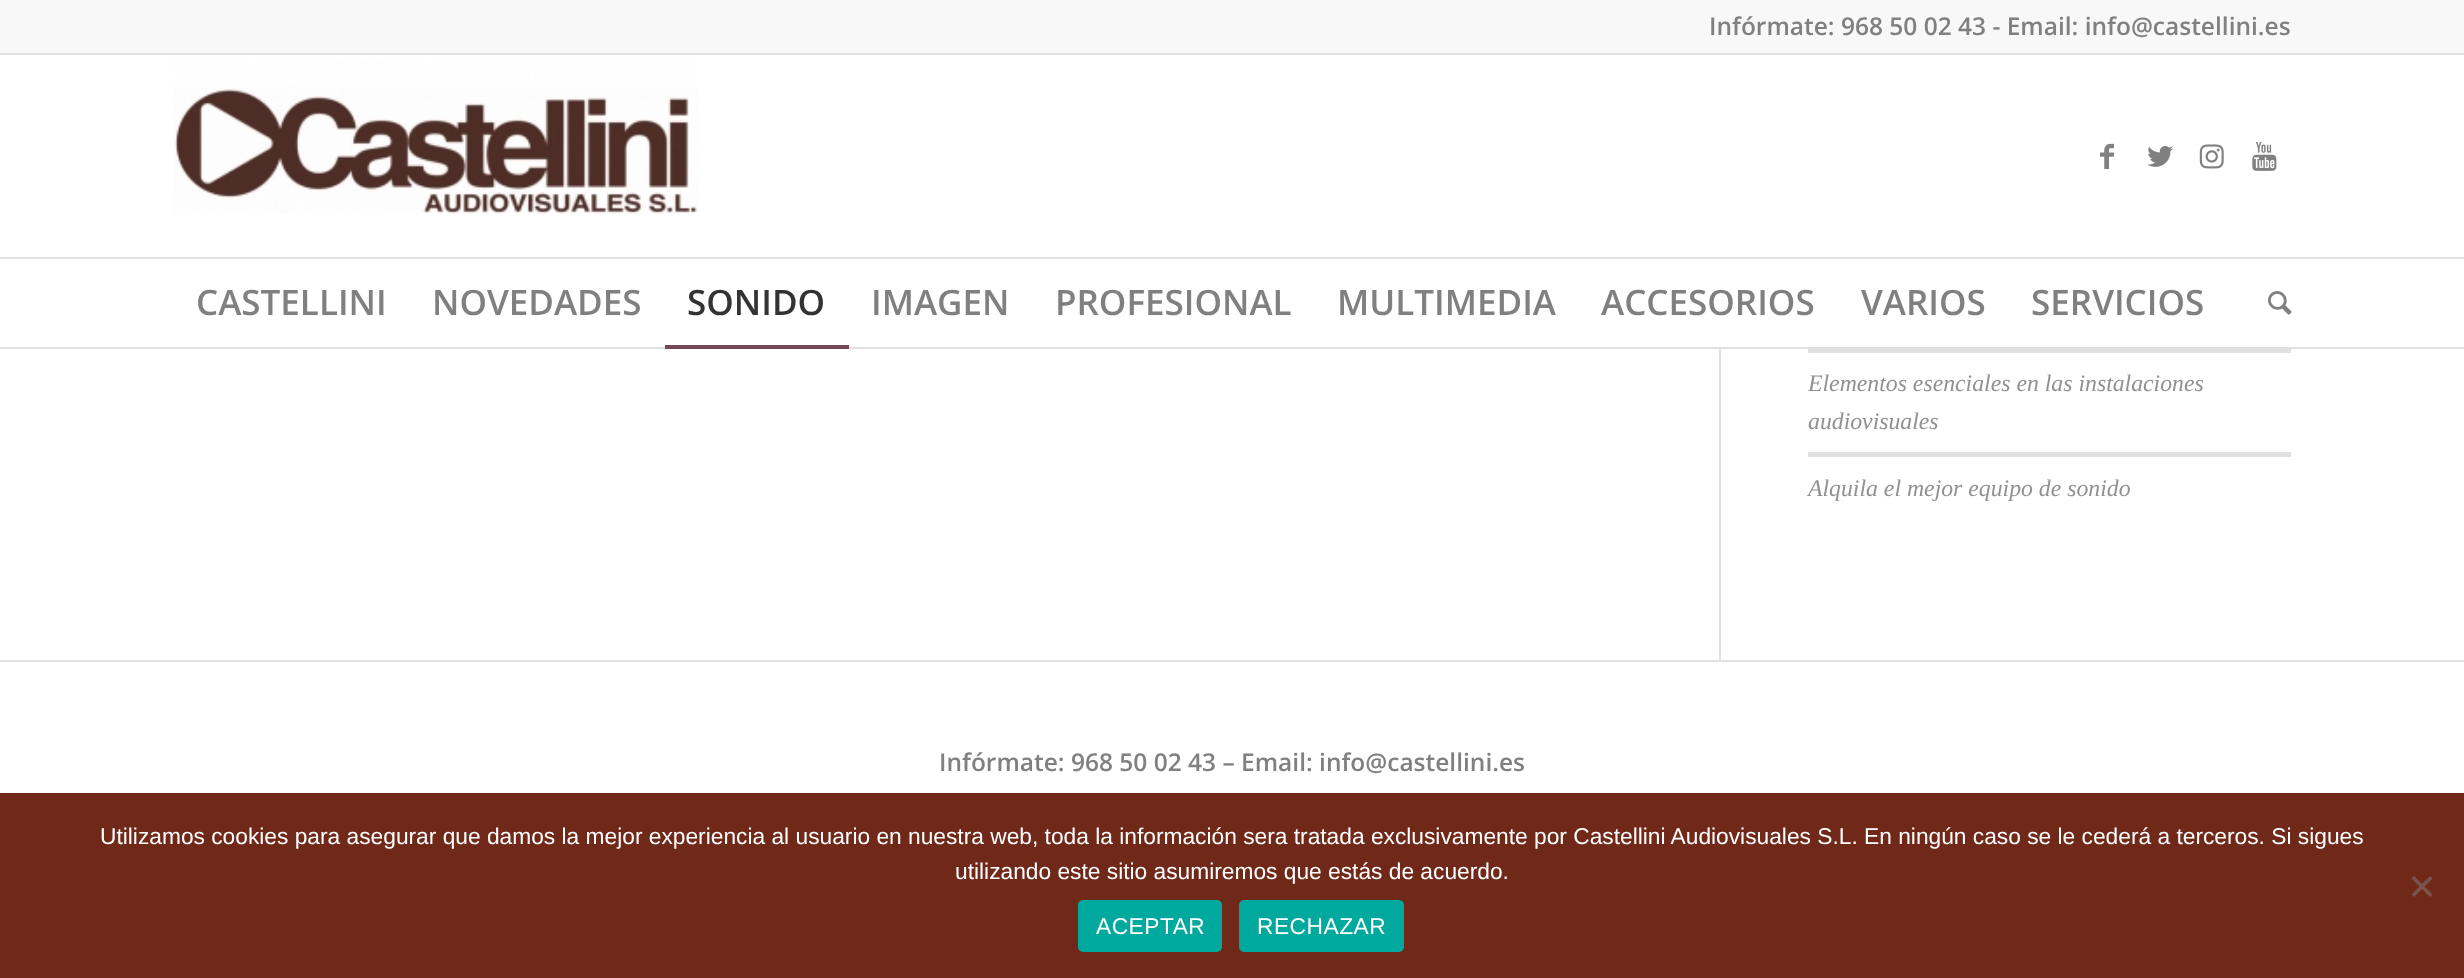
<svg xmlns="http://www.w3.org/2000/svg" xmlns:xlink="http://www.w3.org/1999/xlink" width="2464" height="978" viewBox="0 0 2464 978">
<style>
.cls-1{font:600 24.5px Open Sans;fill:#808080}
.cls-2{font:600 35px Open Sans;fill:#808080}
.cls-3{font:600 35px Open Sans;fill:#333333}
.cls-4{font:italic 23.75px Liberation Serif;fill:#919191}
.cls-5{font:22.75px Liberation Sans;fill:#ffffff}
.cls-6{font:22.75px Liberation Sans;letter-spacing:0.5px;fill:#ffffff}
</style>
<rect width="100%" height="100%" fill="#ffffff"/>
<rect fill="#f8f8f8" x="0" y="0" width="2464" height="53"/>
<rect fill="#e1e1e1" x="0" y="53" width="2464" height="2"/>
<rect fill="#e1e1e1" x="0" y="347" width="2464" height="2"/>
<image xlink:href="image0.png" x="173" y="55" width="526" height="159"/>
<image xlink:href="image1.png" x="2100" y="143" width="14" height="27"/>
<image xlink:href="image2.png" x="2147" y="146" width="26" height="21"/>
<image xlink:href="image3.png" x="2199" y="144" width="25" height="25"/>
<image xlink:href="image4.png" x="2252" y="142" width="25" height="29"/>
<rect fill="#e1e1e1" x="0" y="257" width="2464" height="2"/>
<rect fill="#734854" x="665" y="345" width="184" height="4"/>
<image xlink:href="image5.png" x="2268" y="291" width="24" height="24"/>
<rect fill="#e1e1e1" x="1719" y="349" width="2" height="311"/>
<rect fill="#e1e1e1" x="1808" y="349" width="483" height="4"/>
<rect fill="#e1e1e1" x="1808" y="452" width="483" height="5"/>
<rect fill="#e1e1e1" x="0" y="660" width="2464" height="2"/>
<rect fill="#702819" x="0" y="793" width="2464" height="185"/>
<path fill="#78544d" d="M2430 876L2432.5 878.5L2414 897L2411.5 894.5Z"/>
<path fill="#78544d" d="M2411.5 878.5L2414 876L2432.5 894.5L2430 897Z"/>
<rect fill="#00a99d" x="1078" y="900" width="144" height="52" rx="5"/>
<rect fill="#00a99d" x="1239" y="900" width="165" height="52" rx="5"/>
<text class="cls-1" x="1709" y="35">Infórmate: 968 50 02 43 - Email: info@castellini.es</text>
<text class="cls-2" x="196" y="315">CASTELLINI</text>
<text class="cls-2" x="432" y="315">NOVEDADES</text>
<text class="cls-3" x="687" y="315">SONIDO</text>
<text class="cls-2" x="871" y="315">IMAGEN</text>
<text class="cls-2" x="1055" y="315">PROFESIONAL</text>
<text class="cls-2" x="1337" y="315">MULTIMEDIA</text>
<text class="cls-2" x="1601" y="315">ACCESORIOS</text>
<text class="cls-2" x="1861" y="315">VARIOS</text>
<text class="cls-2" x="2031" y="315">SERVICIOS</text>
<text class="cls-4"><tspan x="1808" y="391">Elementos esenciales en las instalaciones</tspan><tspan x="1808" y="429">audiovisuales</tspan></text>
<text class="cls-4" x="1808" y="496">Alquila el mejor equipo de sonido</text>
<text class="cls-1" x="939" y="771">Infórmate: 968 50 02 43 – Email: info@castellini.es</text>
<text class="cls-5" x="100" y="844">Utilizamos cookies para asegurar que damos la mejor experiencia al usuario en nuestra web, toda la información sera tratada exclusivamente por Castellini Audiovisuales S.L. En ningún caso se le cederá a terceros. Si sigues</text>
<text class="cls-5" x="955" y="879">utilizando este sitio asumiremos que estás de acuerdo.</text>
<text class="cls-6" x="1096" y="934">ACEPTAR</text>
<text class="cls-6" x="1257" y="934">RECHAZAR</text>
</svg>
